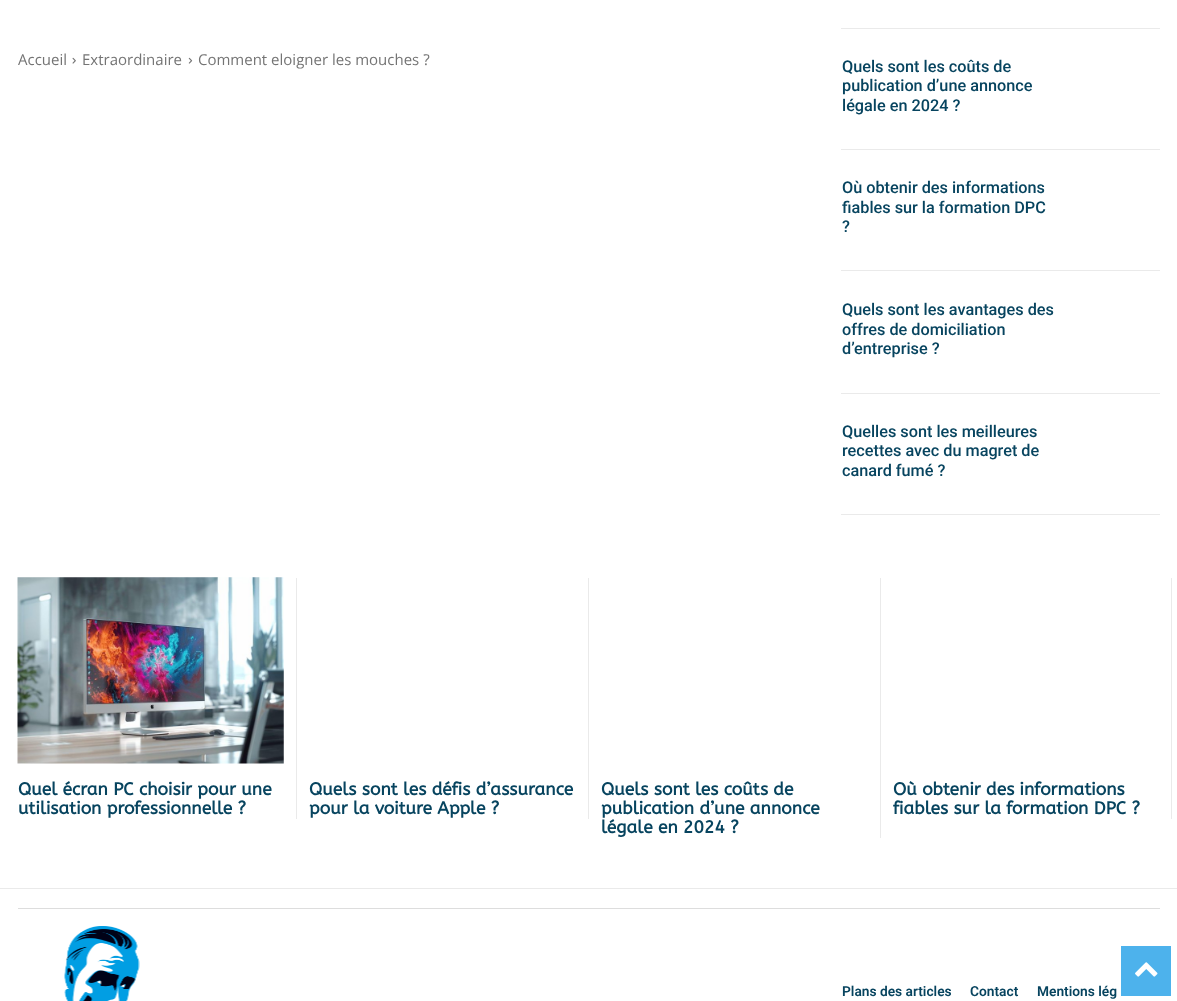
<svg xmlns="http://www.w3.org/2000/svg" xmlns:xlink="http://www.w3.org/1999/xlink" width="1177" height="1001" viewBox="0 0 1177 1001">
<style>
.cls-1{font:15px Open Sans;fill:#747474}
.cls-2{font:500 16.25px Roboto;fill:#07445f}
.cls-3{font:bold 17.5px ABeeZee;fill:#07445f}
.cls-4{font:600 13.75px Roboto;fill:#07445f}
</style>
<rect width="100%" height="100%" fill="#ffffff"/>
<image xlink:href="image0.png" x="72" y="57" width="4" height="7"/>
<image xlink:href="image1.png" x="188" y="57" width="5" height="7"/>
<rect fill="#eaeaea" x="841" y="28" width="319" height="1"/>
<rect fill="#eaeaea" x="841" y="149" width="319" height="1"/>
<rect fill="#eaeaea" x="841" y="270" width="319" height="1"/>
<rect fill="#eaeaea" x="841" y="393" width="319" height="1"/>
<rect fill="#eaeaea" x="841" y="514" width="319" height="1"/>
<rect fill="#eaeaea" x="296" y="578" width="1" height="241"/>
<image xlink:href="image2.png" x="17" y="577" width="267" height="187"/>
<rect fill="#eaeaea" x="588" y="578" width="1" height="241"/>
<rect fill="#eaeaea" x="880" y="578" width="1" height="260"/>
<rect fill="#eaeaea" x="1171" y="578" width="1" height="241"/>
<rect fill="#eaeaea" x="0" y="888" width="1177" height="1"/>
<rect fill="#dddddd" x="18" y="908" width="1142" height="1"/>
<image xlink:href="image3.png" x="64" y="926" width="76" height="75"/>
<rect fill="#4db2ec" x="1121" y="946" width="50" height="50"/>
<image xlink:href="image4.png" x="1135" y="962" width="23" height="15"/>
<text class="cls-1" x="18" y="65">Accueil</text>
<text class="cls-1" x="82" y="65">Extraordinaire</text>
<text class="cls-1" x="198" y="65">Comment eloigner les mouches ?</text>
<text class="cls-2"><tspan x="842" y="72">Quels sont les coûts de</tspan><tspan x="842" y="91">publication d’une annonce</tspan><tspan x="842" y="111">légale en 2024 ?</tspan></text>
<text class="cls-2"><tspan x="842" y="193">Où obtenir des informations</tspan><tspan x="842" y="213">fiables sur la formation DPC</tspan><tspan x="842" y="232">?</tspan></text>
<text class="cls-2"><tspan x="842" y="315">Quels sont les avantages des</tspan><tspan x="842" y="335">offres de domiciliation</tspan><tspan x="842" y="354">d’entreprise ?</tspan></text>
<text class="cls-2"><tspan x="842" y="437">Quelles sont les meilleures</tspan><tspan x="842" y="456">recettes avec du magret de</tspan><tspan x="842" y="476">canard fumé ?</tspan></text>
<text class="cls-3"><tspan x="18" y="795">Quel écran PC choisir pour une</tspan><tspan x="18" y="814">utilisation professionnelle ?</tspan></text>
<text class="cls-3"><tspan x="309" y="795">Quels sont les défis d’assurance</tspan><tspan x="309" y="814">pour la voiture Apple ?</tspan></text>
<text class="cls-3"><tspan x="601" y="795">Quels sont les coûts de</tspan><tspan x="601" y="814">publication d’une annonce</tspan><tspan x="601" y="833">légale en 2024 ?</tspan></text>
<text class="cls-3"><tspan x="893" y="795">Où obtenir des informations</tspan><tspan x="893" y="814">fiables sur la formation DPC ?</tspan></text>
<text class="cls-4" x="842" y="996">Plans des articles</text>
<text class="cls-4" x="970" y="996">Contact</text>
<text class="cls-4" x="1037" y="996">Mentions lég</text>
</svg>
